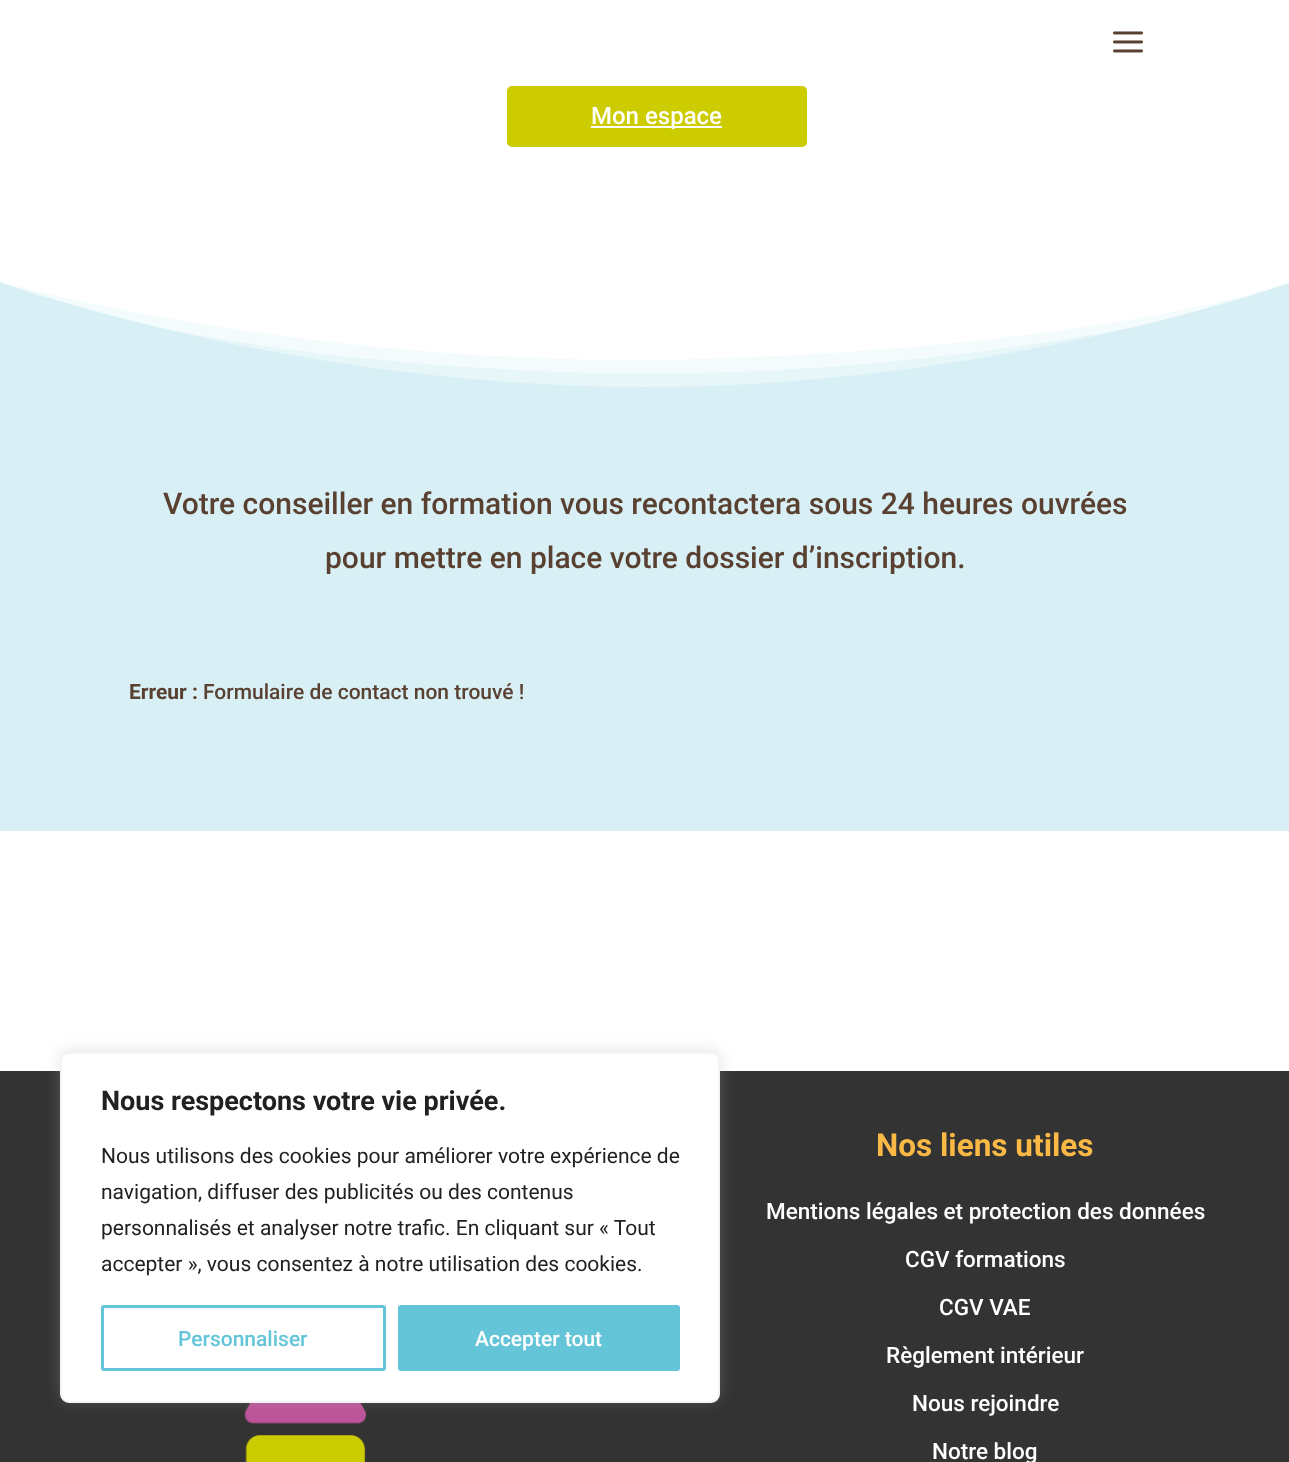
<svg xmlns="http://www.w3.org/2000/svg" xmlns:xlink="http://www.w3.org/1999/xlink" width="1289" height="1462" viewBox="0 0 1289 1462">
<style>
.cls-1{font:500 24px Roboto;fill:#ffffff}
.cls-2{font:500 30px Roboto;fill:#594031}
.cls-3{font:bold 21px Roboto;fill:#594031}
.cls-4{font:500 21px Roboto;fill:#594031}
.cls-5{font:bold 31.5px Roboto;fill:#fab845}
.cls-6{font:500 22.5px Roboto;fill:#ffffff}
.cls-7{font:bold 27px Roboto;fill:#212121}
.cls-8{font:21px Roboto;fill:#212121}
.cls-9{font:500 21px Roboto;fill:#64c4d8}
.cls-10{font:500 21px Roboto;fill:#ffffff}
</style>
<defs>
<clipPath id="clip1"><rect x="0" y="282" width="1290" height="105"/></clipPath>
</defs>
<rect width="100%" height="100%" fill="#ffffff"/>
<image xlink:href="image0.png" x="1113" y="31" width="30" height="22"/>
<rect fill="#cccc00" stroke="#cccc00" stroke-width="3" x="508.5" y="87.5" width="297" height="58" rx="3.5"/>
<rect fill="#ffffff" x="591" y="126" width="131" height="2"/>
<path fill="#f3fbfc" d="M731 358C328 374 0 282 0 282V387H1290V282C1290 282 1134 342 731 358Z"/>
<path fill="#e6f6f9" d="M561 372C961 387 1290 292 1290 292V387H0V282C0 282 161 357 561 372Z"/>
<g clip-path="url(#clip1)">
<path fill="#d8f0f5" d="M645 387C1001 387 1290 282 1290 283V388H0V282C0 282 289 387 645 387Z"/>
</g>
<rect fill="#d8f0f5" x="0" y="387" width="1289" height="444"/>
<rect fill="#333333" x="0" y="1071" width="1289" height="391"/>
<image xlink:href="image1.png" x="244" y="1403" width="122" height="59"/>
<rect fill="#acabab" fill-opacity="0.3" filter="blur(7.5px)" x="60" y="1050" width="660" height="351" rx="9"/>
<rect fill="#ffffff" stroke="#f4f4f4" stroke-width="2" x="61" y="1053" width="658" height="349" rx="8"/>
<rect fill="none" stroke="#64c4d8" stroke-width="3" x="102.5" y="1306.5" width="282" height="63" rx="1.5"/>
<rect fill="#64c4d8" stroke="#64c4d8" stroke-width="3" x="399.5" y="1306.5" width="279" height="63" rx="1.5"/>
<text class="cls-1" x="591" y="124">Mon espace</text>
<text class="cls-2" x="163" y="514">Votre conseiller en formation vous recontactera sous 24 heures ouvrées</text>
<text class="cls-2" x="325" y="568">pour mettre en place votre dossier d’inscription.</text>
<text class="cls-3" x="129" y="699">Erreur :</text>
<text class="cls-4" x="203" y="699">Formulaire de contact non trouvé !</text>
<text class="cls-5" x="876" y="1156">Nos liens utiles</text>
<text class="cls-6" x="766" y="1219">Mentions légales et protection des données</text>
<text class="cls-6" x="905" y="1267">CGV formations</text>
<text class="cls-6" x="939" y="1315">CGV VAE</text>
<text class="cls-6" x="886" y="1363">Règlement intérieur</text>
<text class="cls-6" x="912" y="1411">Nous rejoindre</text>
<text class="cls-6" x="932" y="1459">Notre blog</text>
<text class="cls-7" x="101" y="1110">Nous respectons votre vie privée.</text>
<text class="cls-8"><tspan x="101" y="1163">Nous utilisons des cookies pour améliorer votre expérience de</tspan><tspan x="101" y="1199">navigation, diffuser des publicités ou des contenus</tspan><tspan x="101" y="1235">personnalisés et analyser notre trafic. En cliquant sur « Tout</tspan><tspan x="101" y="1271">accepter », vous consentez à notre utilisation des cookies.</tspan></text>
<text class="cls-9" x="178" y="1346">Personnaliser</text>
<text class="cls-10" x="475" y="1346">Accepter tout</text>
</svg>
